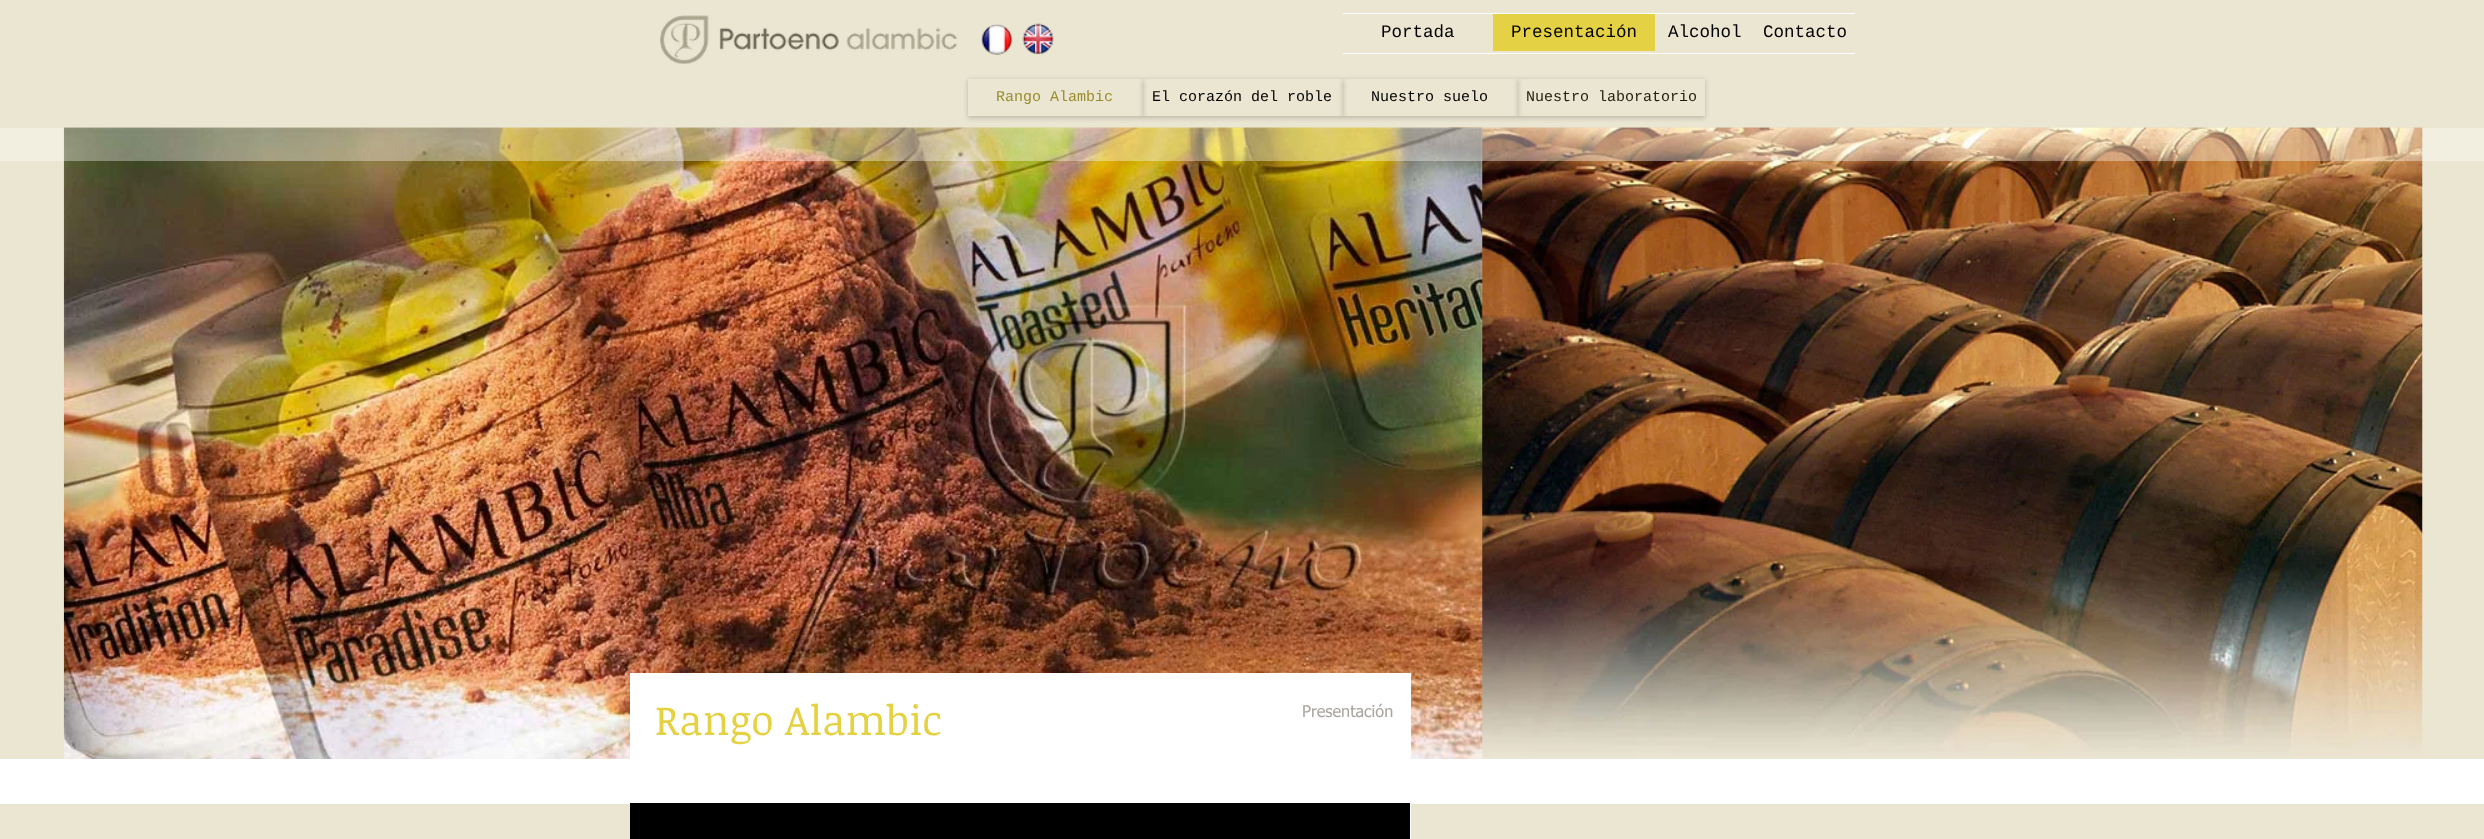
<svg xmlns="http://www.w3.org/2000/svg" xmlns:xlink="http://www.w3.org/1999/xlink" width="2484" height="839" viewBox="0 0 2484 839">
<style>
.cls-1{font:17.5px Liberation Mono;fill:#000000}
.cls-2{font:15px Liberation Mono;fill:#998c2d}
.cls-3{font:15px Liberation Mono;fill:#000000}
.cls-4{font:15px Liberation Mono;fill:#221b0e}
.cls-5{font:41.25px Noticia Text;fill:#e5d244}
.cls-6{font:16.25px tahoma;fill:#aba5a0}
</style>
<defs>
<clipPath id="clip1"><path d="M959 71H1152V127H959ZM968 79H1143V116H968Z" clip-rule="evenodd"/></clipPath>
<clipPath id="clip2"><path d="M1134 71H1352V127H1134ZM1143 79H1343V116H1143Z" clip-rule="evenodd"/></clipPath>
<clipPath id="clip3"><path d="M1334 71H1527V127H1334ZM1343 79H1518V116H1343Z" clip-rule="evenodd"/></clipPath>
<clipPath id="clip4"><path d="M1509 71H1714V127H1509ZM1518 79H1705V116H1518Z" clip-rule="evenodd"/></clipPath>
</defs>
<rect width="100%" height="100%" fill="#ebe6d2"/>
<rect fill="#ffffff" x="1343" y="13" width="512" height="1"/>
<image xlink:href="image0.png" x="660" y="15" width="298" height="49"/>
<image xlink:href="image1.png" x="981" y="24" width="32" height="31"/>
<image xlink:href="image2.png" x="1022" y="23" width="32" height="32"/>
<rect fill="#e5d244" x="1493" y="14" width="162" height="37"/>
<rect fill="#ffffff" x="1343" y="53" width="512" height="1"/>
<g clip-path="url(#clip1)">
<rect fill="#000000" fill-opacity="0.2" filter="blur(2.5px)" x="968" y="80" width="175" height="38"/>
</g>
<g clip-path="url(#clip2)">
<rect fill="#000000" fill-opacity="0.2" filter="blur(2.5px)" x="1143" y="80" width="200" height="38"/>
</g>
<g clip-path="url(#clip3)">
<rect fill="#000000" fill-opacity="0.2" filter="blur(2.5px)" x="1343" y="80" width="175" height="38"/>
</g>
<g clip-path="url(#clip4)">
<rect fill="#000000" fill-opacity="0.2" filter="blur(2.5px)" x="1518" y="80" width="187" height="38"/>
</g>
<image xlink:href="image4.png" x="1449" y="127" width="974" height="630"/>
<image xlink:href="image3.png" x="63" y="127" width="1420" height="632"/>
<rect fill="#ffffff" x="0" y="759" width="2484" height="45"/>
<rect fill="#ffffff" x="630" y="673" width="781" height="166"/>
<rect fill="#000000" x="630" y="803" width="780" height="36"/>
<rect fill="#ffffff" fill-opacity="0.35" x="0" y="128" width="2484" height="33"/>
<rect fill="#ffffff" fill-opacity="0.05" x="630" y="128" width="1225" height="33"/>
<text class="cls-1" x="1381" y="37">Portada</text>
<text class="cls-1" x="1511" y="37">Presentación</text>
<text class="cls-1" x="1668" y="37">Alcohol</text>
<text class="cls-1" x="1763" y="37">Contacto</text>
<text class="cls-2" x="996" y="101">Rango Alambic</text>
<text class="cls-3" x="1152" y="101">El corazón del roble</text>
<text class="cls-3" x="1371" y="101">Nuestro suelo</text>
<text class="cls-4" x="1526" y="101">Nuestro laboratorio</text>
<text class="cls-5" x="655" y="735">Rango Alambic</text>
<text class="cls-6" x="1302" y="717">Presentación</text>
</svg>
